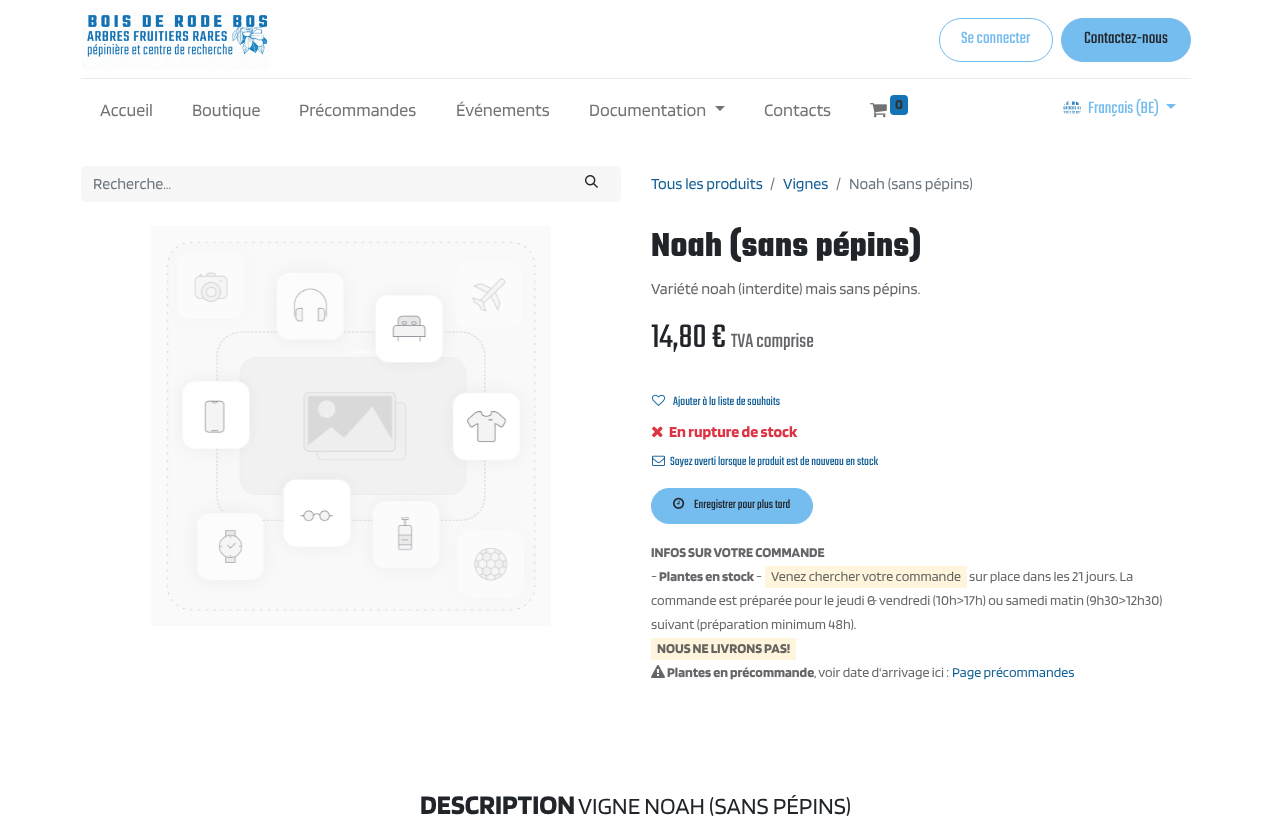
<svg xmlns="http://www.w3.org/2000/svg" xmlns:xlink="http://www.w3.org/1999/xlink" width="1271" height="831" viewBox="0 0 1271 831">
<style>
.cls-1{font:18px Teko;fill:#75bcef}
.cls-2{font:18px Teko;fill:#212529}
.cls-3{font:18px Blinker;fill:#737373}
.cls-4{font:bold 14px Blinker;fill:#333333}
.cls-5{font:16px Blinker;fill:#6c757d}
.cls-6{font:16px Blinker;fill:#115f95}
.cls-7{font:bold 36px Teko;fill:#212529}
.cls-8{font:16px Blinker;fill:#646669}
.cls-9{font:36px Teko;fill:#212529}
.cls-10{font:21px Teko;fill:#646669}
.cls-11{font:13px Teko;fill:#115f95}
.cls-12{font:bold 16px Blinker;fill:#dc3545}
.cls-13{font:13px Teko;fill:#212529}
.cls-14{font:bold 14px Blinker;fill:#646669}
.cls-15{font:14px Blinker;fill:#646669}
.cls-16{font:14px Blinker;fill:#64635f}
.cls-17{font:bold 14px Blinker;fill:#64635f}
.cls-18{font:14px Blinker;fill:#115f95}
.cls-19{font:bold 28px Blinker;fill:#212529}
.cls-20{font:24px Blinker;fill:#212529}
</style>
<rect width="100%" height="100%" fill="#ffffff"/>
<image xlink:href="image0.png" x="81" y="11" width="190" height="59"/>
<rect fill="none" stroke="#75bcef" x="939.5" y="18.5" width="113" height="43" rx="21.5"/>
<rect fill="#75bcef" stroke="#75bcef" x="1061.5" y="18.5" width="129" height="43" rx="21.5"/>
<rect fill="#e9ecef" x="81" y="78" width="1110" height="1"/>
<path fill="#737373" d="M715 106H725L720 111Z"/>
<image xlink:href="image1.png" x="870" y="103" width="17" height="15"/>
<rect fill="#1573b5" x="890" y="95" width="18" height="20" rx="4"/>
<image xlink:href="image2.png" x="1063" y="101" width="18" height="14"/>
<path fill="#75bcef" d="M1166 104H1176L1171 109Z"/>
<path fill="#f7f7f7" d="M85 166H563V202H85C83 202 81 200 81 198V170C81 168 83 166 85 166Z"/>
<path fill="#f7f7f7" d="M562 166H617C619 166 621 168 621 170V198C621 200 619 202 617 202H562Z"/>
<image xlink:href="image3.png" x="585" y="175" width="13" height="13"/>
<image xlink:href="image4.png" x="151" y="226" width="400" height="400"/>
<image xlink:href="image5.png" x="652" y="394" width="13" height="12"/>
<image xlink:href="image6.png" x="652" y="426" width="11" height="12"/>
<image xlink:href="image7.png" x="652" y="455" width="13" height="11"/>
<rect fill="#75bcef" stroke="#75bcef" x="651.5" y="488.5" width="161" height="35" rx="17.5"/>
<image xlink:href="image8.png" x="673" y="497" width="12" height="12"/>
<rect fill="#fff5dd" x="765" y="566" width="202" height="22"/>
<rect fill="#fff5dd" x="651" y="638" width="145" height="22"/>
<image xlink:href="image9.png" x="651" y="665" width="14" height="13"/>
<text class="cls-1" x="961" y="43">Se connecter</text>
<text class="cls-2" x="1084" y="43">Contactez-nous</text>
<text class="cls-3" x="100" y="116">Accueil</text>
<text class="cls-3" x="192" y="116">Boutique</text>
<text class="cls-3" x="299" y="116">Précommandes</text>
<text class="cls-3" x="456" y="116">Événements</text>
<text class="cls-3" x="589" y="116">Documentation</text>
<text class="cls-3" x="764" y="116">Contacts</text>
<text class="cls-4" x="895" y="109">0</text>
<text class="cls-1" x="1088" y="113">Français (BE)</text>
<text class="cls-5" x="93" y="189">Recherche…</text>
<text class="cls-6" x="651" y="189">Tous les produits</text>
<text class="cls-5" x="770" y="189">/</text>
<text class="cls-6" x="783" y="189">Vignes</text>
<text class="cls-5" x="836" y="189">/</text>
<text class="cls-5" x="849" y="189">Noah (sans pépins)</text>
<text class="cls-7" x="651" y="256">Noah (sans pépins)</text>
<text class="cls-8" x="651" y="294">Variété noah (interdite) mais sans pépins.</text>
<text class="cls-9" x="651" y="347">14,80 €</text>
<text class="cls-10" x="731" y="347">TVA comprise</text>
<text class="cls-11" x="673" y="405">Ajouter à la liste de souhaits</text>
<text class="cls-12" x="669" y="437">En rupture de stock</text>
<text class="cls-11" x="670" y="465">Soyez averti lorsque le produit est de nouveau en stock</text>
<text class="cls-13" x="694" y="508">Enregistrer pour plus tard</text>
<text class="cls-14" x="651" y="557">INFOS SUR VOTRE COMMANDE</text>
<text class="cls-15" x="651" y="581">-</text>
<text class="cls-14" x="659" y="581">Plantes en stock</text>
<text class="cls-15" x="756" y="581">-</text>
<text class="cls-16" x="771" y="581">Venez chercher votre commande</text>
<text class="cls-15" x="969" y="581">sur place dans les 21 jours. La</text>
<text class="cls-15"><tspan x="651" y="605">commande est préparée pour le jeudi &amp; vendredi (10h&gt;17h) ou samedi matin (9h30&gt;12h30)</tspan><tspan x="651" y="629">suivant (préparation minimum 48h).</tspan></text>
<text class="cls-17" x="657" y="653">NOUS NE LIVRONS PAS!</text>
<text class="cls-14" x="667" y="677">Plantes en précommande</text>
<text class="cls-15" x="814" y="677">, voir date d'arrivage ici :</text>
<text class="cls-18" x="952" y="677">Page précommandes</text>
<text class="cls-19" x="420" y="814">DESCRIPTION</text>
<text class="cls-20" x="578" y="814">VIGNE NOAH (SANS PÉPINS)</text>
</svg>
